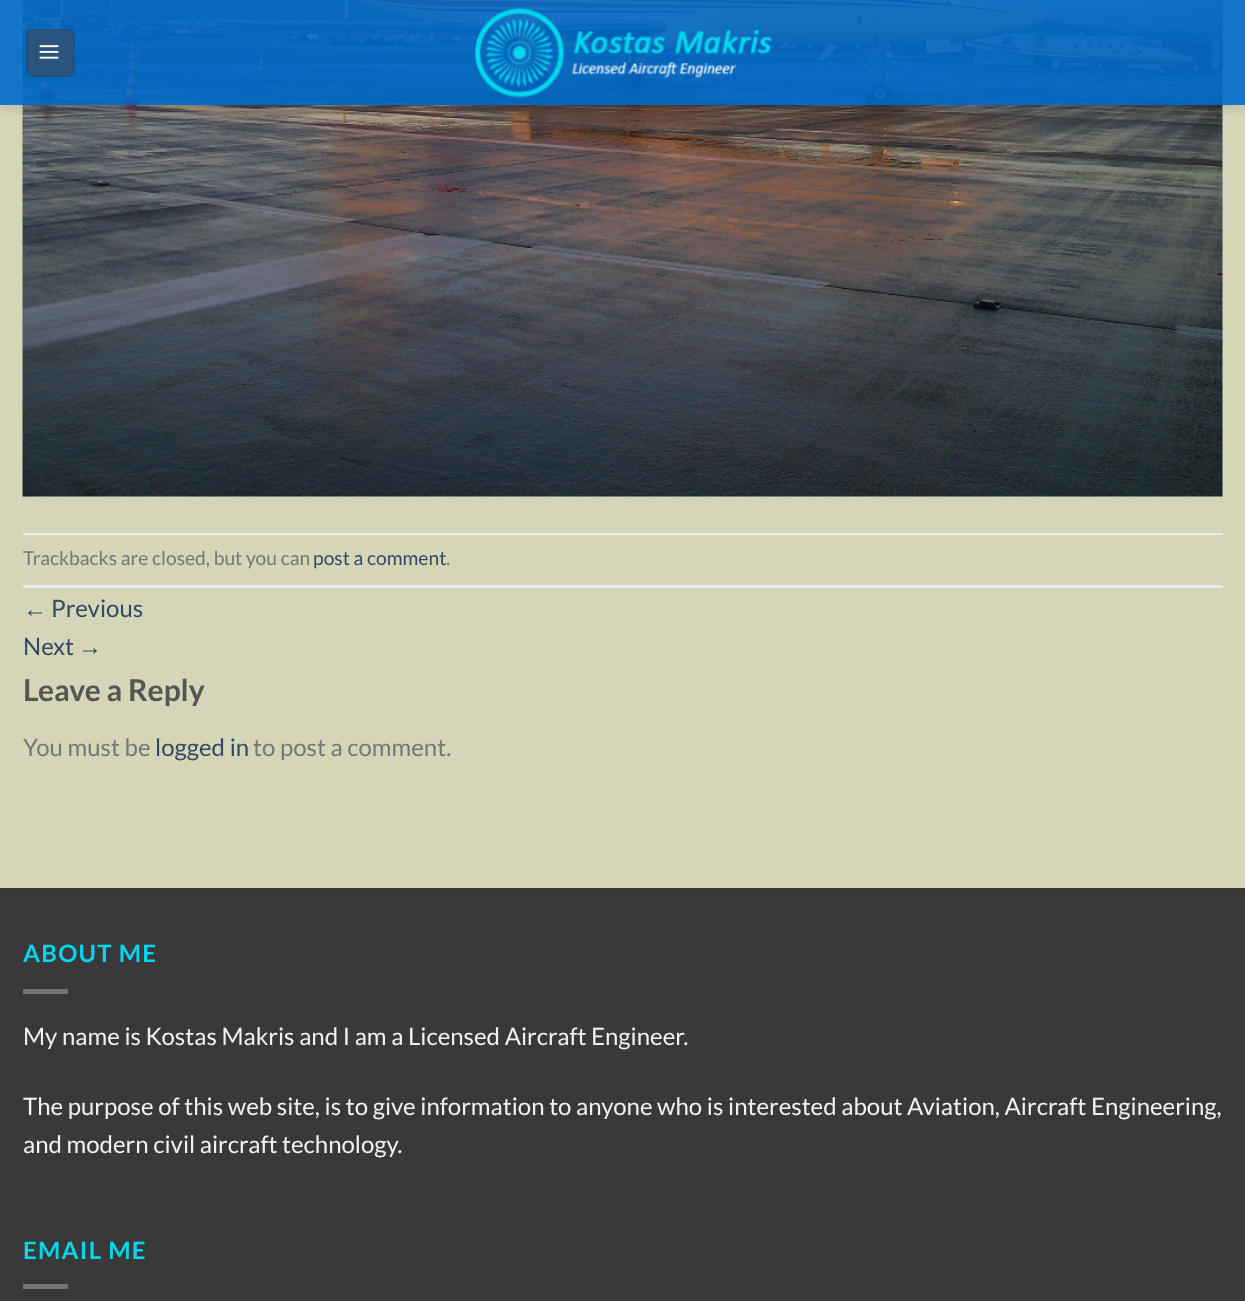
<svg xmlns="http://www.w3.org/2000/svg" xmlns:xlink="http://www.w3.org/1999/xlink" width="1245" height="1301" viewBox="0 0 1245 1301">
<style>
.cls-1{font:19.25px Lato;fill:#777777}
.cls-2{font:19.25px Lato;fill:#334862}
.cls-3{font:24px Liberation Sans;fill:#334862}
.cls-4{font:24px Lato;fill:#334862}
.cls-5{font:bold 30px Lato;fill:#555555}
.cls-6{font:24px Lato;fill:#777777}
.cls-7{font:bold 24px Lato;letter-spacing:1.25px;fill:#00d6ee}
.cls-8{font:24px Lato;fill:#f1f1f1}
</style>
<defs>
<clipPath id="clip1"><rect x="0" y="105" width="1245" height="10"/></clipPath>
</defs>
<rect width="100%" height="100%" fill="#d5d5b8"/>
<image xlink:href="image2.png" x="22" y="0" width="1201" height="497"/>
<g clip-path="url(#clip1)">
<rect fill="#000000" fill-opacity="0.15" filter="blur(7.5px)" x="2" y="2" width="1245" height="105"/>
</g>
<rect fill="#006bc9" fill-opacity="0.69" x="0" y="0" width="1245" height="105"/>
<rect fill="#006bc9" fill-opacity="0.69" x="0" y="0" width="1245" height="105"/>
<rect fill="#2a557e" x="26" y="29" width="49" height="48" rx="8"/>
<rect fill="none" stroke="#000000" stroke-opacity="0.05" stroke-width="2" x="27" y="30" width="47" height="46"/>
<image xlink:href="image0.png" x="39" y="45" width="20" height="14"/>
<image xlink:href="image1.png" x="474" y="7" width="298" height="91"/>
<rect fill="#ececec" x="23" y="533" width="1200" height="2"/>
<rect fill="#ececec" x="23" y="585" width="1200" height="3"/>
<rect fill="#393939" x="0" y="890" width="1245" height="411"/>
<rect fill="#363636" x="0" y="888" width="1245" height="2"/>
<rect fill="#747474" x="23" y="989" width="45" height="5"/>
<rect fill="#747474" x="23" y="1284" width="45" height="5"/>
<text class="cls-1" x="23" y="565">Trackbacks are closed, but you can</text>
<text class="cls-2" x="313" y="565">post a comment</text>
<text class="cls-1" x="446" y="565">.</text>
<text class="cls-3" x="23" y="617">←</text>
<text class="cls-4" x="51" y="617">Previous</text>
<text class="cls-4" x="23" y="655">Next</text>
<text class="cls-3" x="78" y="655">→</text>
<text class="cls-5" x="23" y="701">Leave a Reply</text>
<text class="cls-6" x="23" y="756">You must be</text>
<text class="cls-4" x="155" y="756">logged in</text>
<text class="cls-6" x="253" y="756">to post a comment.</text>
<text class="cls-7" x="23" y="962">ABOUT ME</text>
<text class="cls-8" x="23" y="1045">My name is Kostas Makris and I am a Licensed Aircraft Engineer.</text>
<text class="cls-8"><tspan x="23" y="1115">The purpose of this web site, is to give information to anyone who is interested about Aviation, Aircraft Engineering,</tspan><tspan x="23" y="1153">and modern civil aircraft technology.</tspan></text>
<text class="cls-7" x="23" y="1259">EMAIL ME</text>
</svg>
